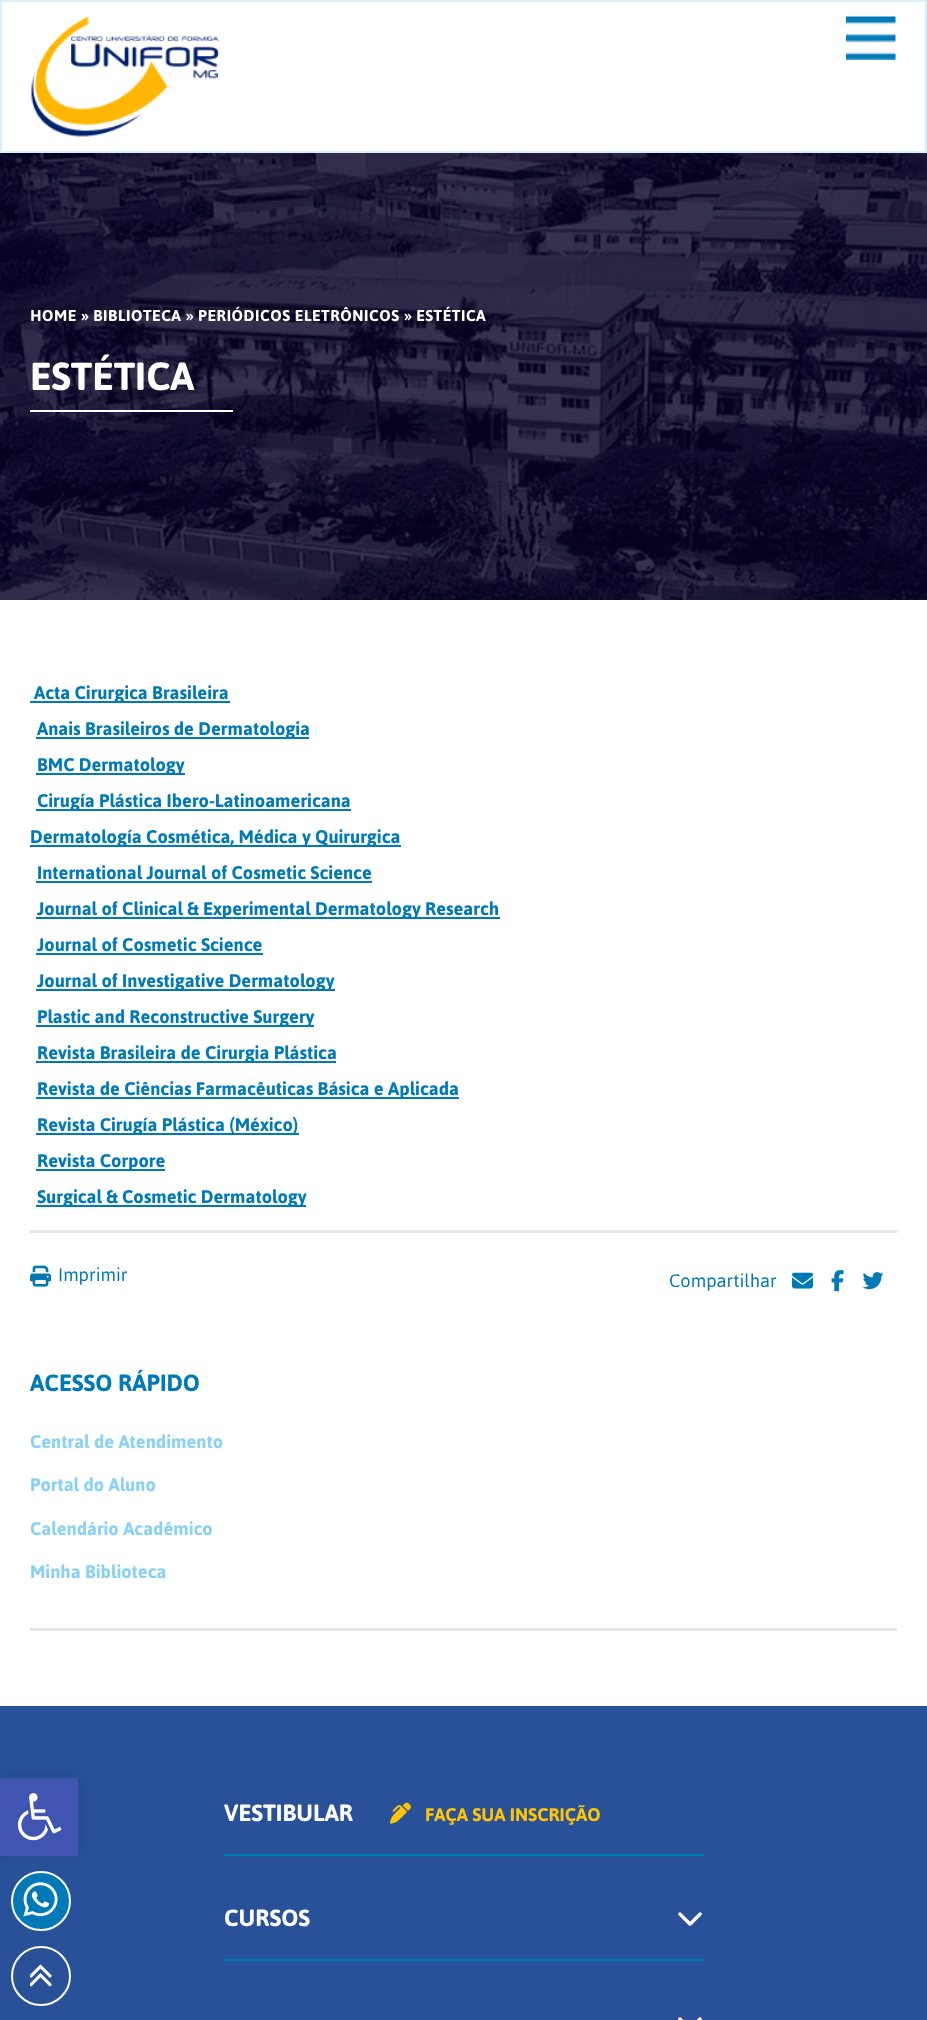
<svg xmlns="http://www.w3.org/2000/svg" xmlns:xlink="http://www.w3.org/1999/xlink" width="927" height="2020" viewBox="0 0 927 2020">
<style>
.cls-1{font:bold 18px Jaldi;letter-spacing:0.55px;fill:#ffffff}
.cls-2{font:bold 45px Jaldi;fill:#ffffff}
.cls-3{font:bold 21px Jaldi;fill:#0079b9}
.cls-4{font:21px Jaldi;fill:#0079b9}
.cls-5{font:bold 27px Jaldi;fill:#0079b9}
.cls-6{font:bold 21px Jaldi;fill:#89d1f6}
.cls-7{font:bold 27px Jaldi;fill:#ffffff}
.cls-8{font:bold 21px Jaldi;fill:#ffc500}
</style>
<rect width="100%" height="100%" fill="#ffffff"/>
<rect fill="none" stroke="#dbefff" stroke-width="2" x="1" y="1" width="925" height="151"/>
<image xlink:href="image0.png" x="31" y="16" width="189" height="121"/>
<image xlink:href="image1.png" x="846" y="16" width="50" height="44"/>
<image xlink:href="image2.png" x="0" y="153" width="927" height="447"/>
<rect fill="#ffffff" x="30" y="410" width="203" height="2"/>
<rect fill="#0079b9" x="30" y="701" width="200" height="2"/>
<rect fill="#0079b9" x="36" y="737" width="273" height="2"/>
<rect fill="#0079b9" x="36" y="773" width="149" height="2"/>
<rect fill="#0079b9" x="36" y="809" width="315" height="2"/>
<rect fill="#0079b9" x="30" y="845" width="371" height="2"/>
<rect fill="#0079b9" x="36" y="881" width="336" height="2"/>
<rect fill="#0079b9" x="36" y="917" width="464" height="2"/>
<rect fill="#0079b9" x="36" y="953" width="227" height="2"/>
<rect fill="#0079b9" x="36" y="989" width="299" height="2"/>
<rect fill="#0079b9" x="36" y="1025" width="278" height="2"/>
<rect fill="#0079b9" x="36" y="1061" width="300" height="2"/>
<rect fill="#0079b9" x="36" y="1097" width="423" height="2"/>
<rect fill="#0079b9" x="36" y="1133" width="263" height="2"/>
<rect fill="#0079b9" x="36" y="1169" width="129" height="2"/>
<rect fill="#0079b9" x="36" y="1205" width="270" height="2"/>
<rect fill="#e5e5e5" x="30" y="1230" width="867" height="3"/>
<image xlink:href="image3.png" x="30" y="1265" width="21" height="22"/>
<image xlink:href="image4.png" x="792" y="1272" width="21" height="17"/>
<image xlink:href="image5.png" x="831" y="1270" width="13" height="22"/>
<image xlink:href="image6.png" x="862" y="1272" width="22" height="18"/>
<rect fill="#e5e5e5" x="30" y="1628" width="867" height="3"/>
<rect fill="#29519a" x="0" y="1706" width="927" height="314"/>
<rect fill="#000000" fill-opacity="0.1" filter="blur(7.5px)" x="0" y="1778" width="78" height="78"/>
<circle fill="#0079b9" stroke="#ffffff" stroke-width="2" cx="41" cy="1901" r="29"/>
<image xlink:href="image7.png" x="23" y="1882" width="35" height="35"/>
<rect fill="#0079b9" x="224" y="1854" width="480" height="2"/>
<image xlink:href="image8.png" x="390" y="1802" width="21" height="22"/>
<rect fill="#0079b9" x="224" y="1959" width="480" height="2"/>
<image xlink:href="image9.png" x="678" y="1912" width="24" height="14"/>
<image xlink:href="image10.png" x="678" y="2017" width="24" height="3"/>
<circle fill="none" stroke="#ffffff" stroke-width="2" cx="41" cy="1976" r="29"/>
<image xlink:href="image11.png" x="30" y="1964" width="22" height="23"/>
<rect fill="#4054b2" x="0" y="1778" width="78" height="78"/>
<image xlink:href="image12.png" x="17" y="1793" width="45" height="48"/>
<text class="cls-1" x="30" y="321">HOME » BIBLIOTECA » PERIÓDICOS ELETRÔNICOS » ESTÉTICA</text>
<text class="cls-2" x="30" y="390">ESTÉTICA</text>
<text class="cls-3" x="34" y="699">Acta Cirurgica Brasileira</text>
<text class="cls-3"><tspan x="37" y="735">Anais Brasileiros de Dermatologia</tspan><tspan x="37" y="771">BMC Dermatology</tspan><tspan x="37" y="807">Cirugía Plástica Ibero-Latinoamericana</tspan></text>
<text class="cls-3" x="30" y="843">Dermatología Cosmética, Médica y Quirurgica</text>
<text class="cls-3"><tspan x="37" y="879">International Journal of Cosmetic Science</tspan><tspan x="37" y="915">Journal of Clinical &amp; Experimental Dermatology Research</tspan><tspan x="37" y="951">Journal of Cosmetic Science</tspan><tspan x="37" y="987">Journal of Investigative Dermatology</tspan><tspan x="37" y="1023">Plastic and Reconstructive Surgery</tspan><tspan x="37" y="1059">Revista Brasileira de Cirurgia Plástica</tspan><tspan x="37" y="1095">Revista de Ciências Farmacêuticas Básica e Aplicada</tspan><tspan x="37" y="1131">Revista Cirugía Plástica (México)</tspan><tspan x="37" y="1167">Revista Corpore</tspan><tspan x="37" y="1203">Surgical &amp; Cosmetic Dermatology</tspan></text>
<text class="cls-4" x="58" y="1281">Imprimir</text>
<text class="cls-4" x="669" y="1287">Compartilhar</text>
<text class="cls-5" x="30" y="1391">ACESSO RÁPIDO</text>
<text class="cls-6" x="30" y="1448">Central de Atendimento</text>
<text class="cls-6" x="30" y="1491">Portal do Aluno</text>
<text class="cls-6" x="30" y="1535">Calendário Acadêmico</text>
<text class="cls-6" x="30" y="1578">Minha Biblioteca</text>
<text class="cls-7" x="224" y="1821">VESTIBULAR</text>
<text class="cls-8" x="425" y="1821">FAÇA SUA INSCRIÇÃO</text>
<text class="cls-7" x="224" y="1926">CURSOS</text>
</svg>
